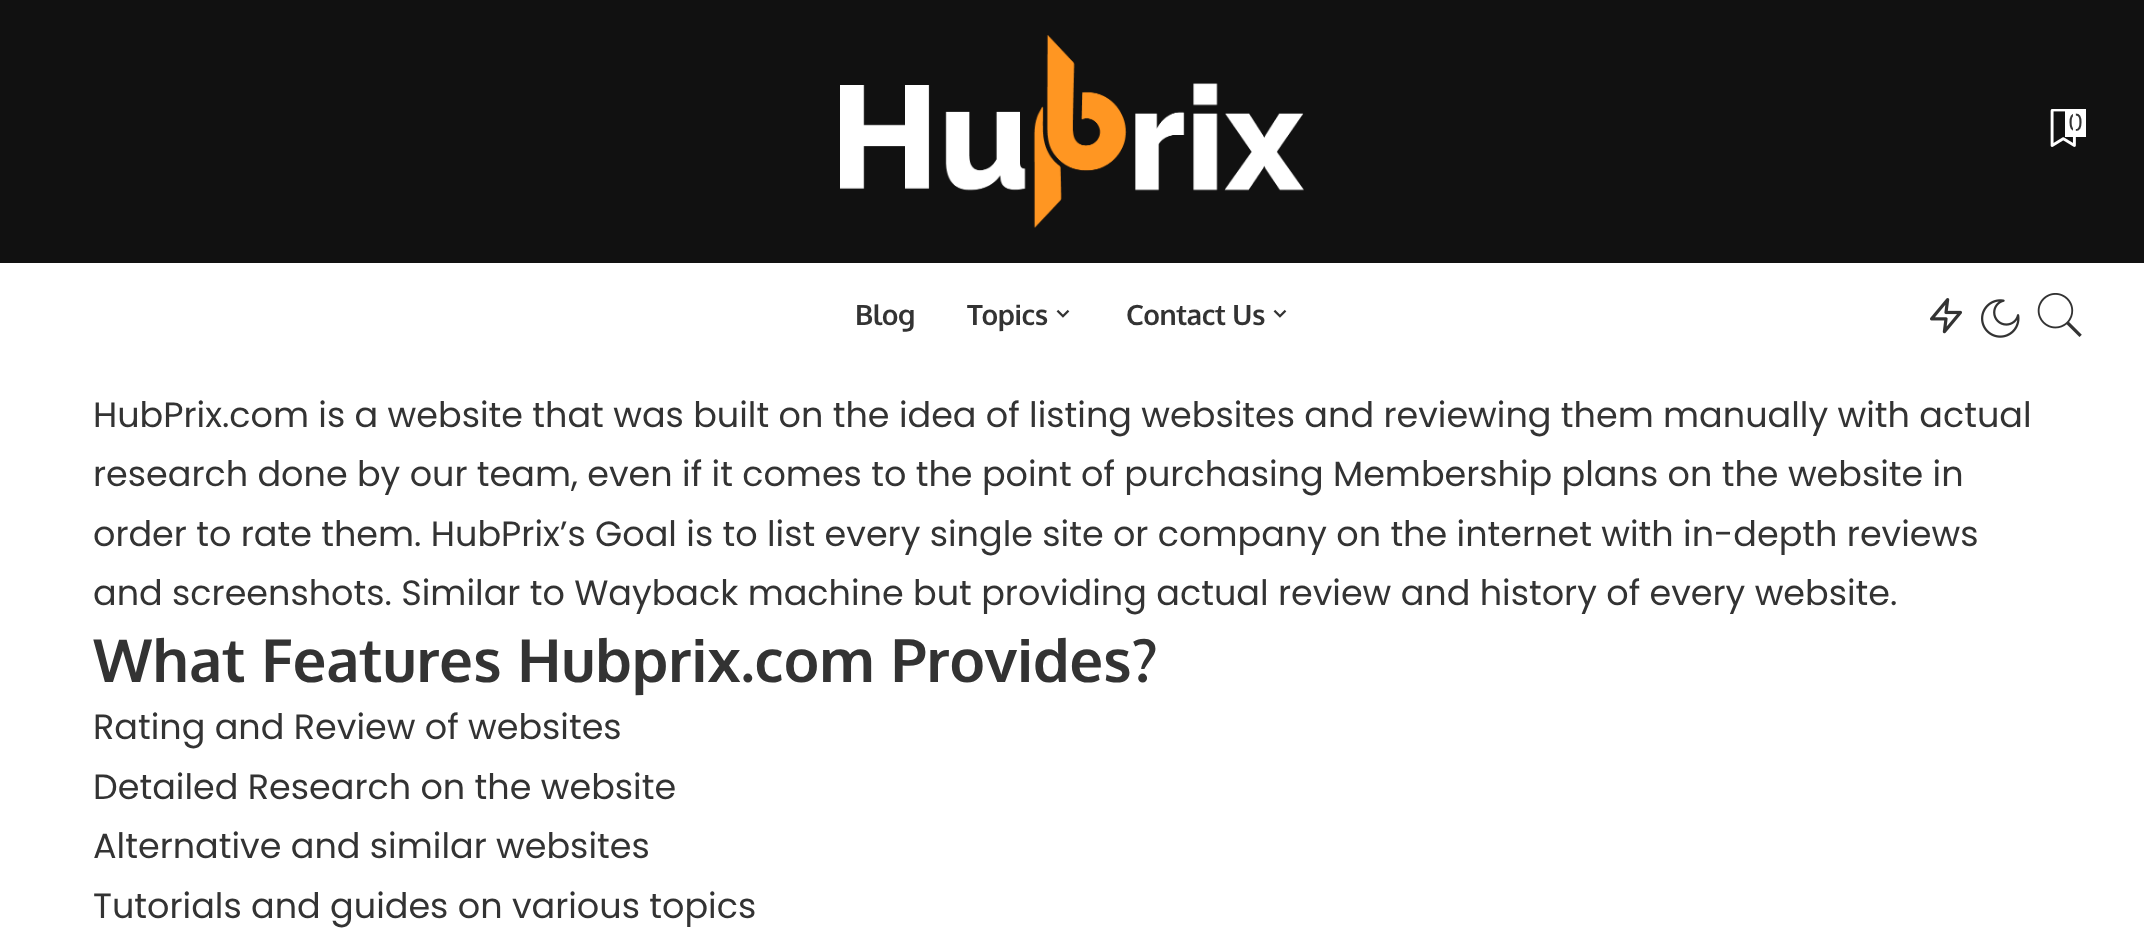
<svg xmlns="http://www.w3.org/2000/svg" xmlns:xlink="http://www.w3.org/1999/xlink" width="2144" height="945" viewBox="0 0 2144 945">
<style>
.cls-1{font:24px Poppins;fill:#333333}
.cls-2{font:bold 28px Oxygen;letter-spacing:-0.5px;fill:#333333}
.cls-3{font:35px Poppins;fill:#333333}
.cls-4{font:bold 59.5px Oxygen;fill:#333333}
</style>
<rect width="100%" height="100%" fill="#ffffff"/>
<rect fill="#111111" x="0" y="0" width="2144" height="263"/>
<image xlink:href="image0.png" x="840" y="35" width="464" height="193"/>
<rect fill="#ffffff" x="2065" y="109" width="21" height="28"/>
<image xlink:href="image2.png" x="1056" y="309" width="14" height="9"/>
<image xlink:href="image2.png" x="1273" y="309" width="14" height="9"/>
<image xlink:href="image3.png" x="1930" y="298" width="32" height="36"/>
<image xlink:href="image4.png" x="1981" y="299" width="39" height="39"/>
<image xlink:href="image5.png" x="2037" y="293" width="45" height="44"/>
<text class="cls-1" x="2068" y="131">0</text>
<image xlink:href="image1.png" x="2050" y="109" width="26" height="38"/>
<text class="cls-2" x="855" y="325">Blog</text>
<text class="cls-2" x="967" y="325">Topics</text>
<text class="cls-2" x="1126" y="325">Contact Us</text>
<text class="cls-3"><tspan x="93" y="427">HubPrix.com is a website that was built on the idea of listing websites and reviewing them manually with actual</tspan><tspan x="93" y="486">research done by our team, even if it comes to the point of purchasing Membership plans on the website in</tspan><tspan x="93" y="546">order to rate them. HubPrix’s Goal is to list every single site or company on the internet with in-depth reviews</tspan><tspan x="93" y="605">and screenshots. Similar to Wayback machine but providing actual review and history of every website.</tspan></text>
<text class="cls-4" x="93" y="682">What Features Hubprix.com Provides?</text>
<text class="cls-3"><tspan x="93" y="739">Rating and Review of websites</tspan><tspan x="93" y="799">Detailed Research on the website</tspan><tspan x="93" y="858">Alternative and similar websites</tspan><tspan x="93" y="918">Tutorials and guides on various topics</tspan></text>
</svg>
